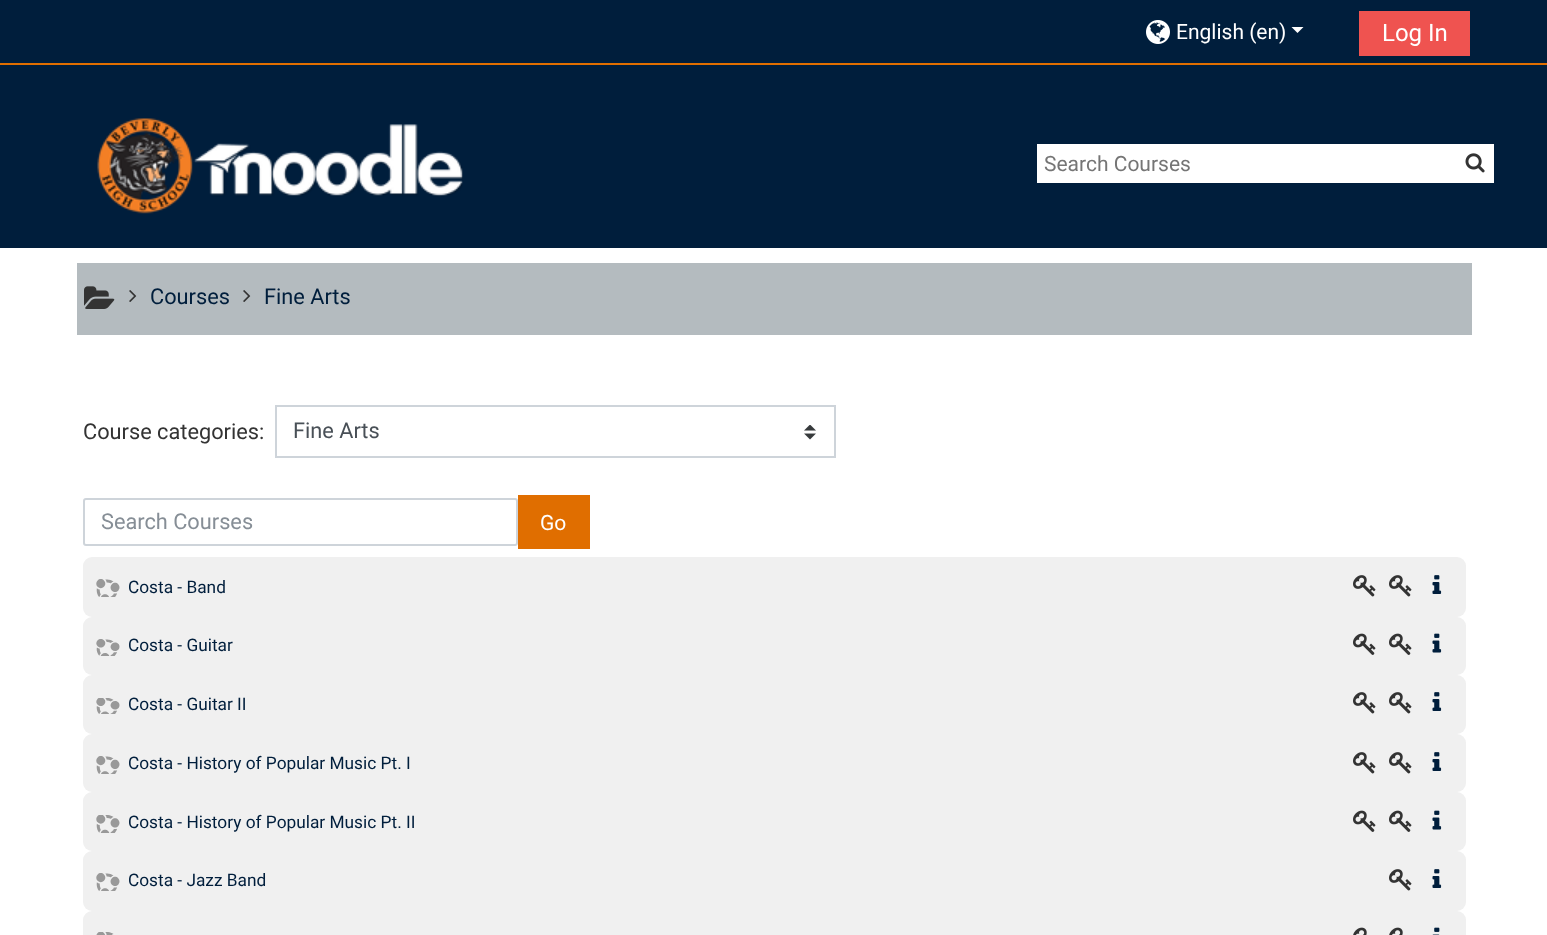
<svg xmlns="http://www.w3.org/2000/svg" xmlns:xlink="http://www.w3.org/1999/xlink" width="1547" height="935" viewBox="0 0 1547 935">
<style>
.cls-1{font:21px Roboto;fill:#ffffff}
.cls-2{font:24px Roboto;fill:#ffffff}
.cls-3{font:21px Roboto;fill:#757575}
.cls-4{font:21.75px Roboto;fill:#001e3c}
.cls-5{font:21.75px Roboto;fill:#333333}
.cls-6{font:21.75px Roboto;fill:#495057}
.cls-7{font:21.75px Roboto;fill:#868e96}
.cls-8{font:17.3px Roboto;fill:#001e3c}
</style>
<rect width="100%" height="100%" fill="#ffffff"/>
<rect fill="#001e3c" x="0" y="0" width="1547" height="248"/>
<rect fill="#e06e00" x="0" y="63" width="1547" height="2"/>
<image xlink:href="image0.png" x="1146" y="20" width="24" height="24"/>
<path fill="#ffffff" d="M1291.5 27H1303.5L1297.5 33Z"/>
<rect fill="#ef5350" x="1359" y="11" width="111" height="45"/>
<image xlink:href="image1.png" x="97" y="118" width="366" height="96"/>
<rect fill="#ffffff" x="1037" y="144" width="457" height="39"/>
<image xlink:href="image2.png" x="1465" y="153" width="20" height="20"/>
<rect fill="#b4bbbf" x="77" y="263" width="1395" height="72"/>
<image xlink:href="image3.png" x="84" y="286" width="31" height="23"/>
<image xlink:href="image4.png" x="129" y="290" width="8" height="12"/>
<image xlink:href="image4.png" x="243" y="290" width="8" height="12"/>
<image xlink:href="image5.png" x="804" y="425" width="12" height="15"/>
<rect fill="none" stroke="#ced4da" stroke-width="2" x="276" y="406" width="559" height="51"/>
<rect fill="none" stroke="#ced4da" stroke-width="2" x="84" y="499" width="433" height="46" rx="2"/>
<rect fill="#e06e00" x="518" y="495" width="72" height="54"/>
<rect fill="#f0f0f0" x="83" y="557" width="1383" height="60" rx="9"/>
<image xlink:href="image6.png" x="96" y="579" width="24" height="18"/>
<image xlink:href="image7.png" x="1353" y="575" width="23" height="22"/>
<image xlink:href="image7.png" x="1389" y="575" width="23" height="22"/>
<image xlink:href="image8.png" x="1432" y="575" width="10" height="19"/>
<rect fill="#f0f0f0" x="83" y="617" width="1383" height="58" rx="9"/>
<image xlink:href="image9.png" x="96" y="639" width="24" height="17"/>
<image xlink:href="image10.png" x="1353" y="633" width="23" height="22"/>
<image xlink:href="image10.png" x="1389" y="633" width="23" height="22"/>
<image xlink:href="image11.png" x="1432" y="633" width="10" height="20"/>
<rect fill="#f0f0f0" x="83" y="675" width="1383" height="59" rx="9"/>
<image xlink:href="image12.png" x="96" y="698" width="24" height="16"/>
<image xlink:href="image7.png" x="1353" y="692" width="23" height="22"/>
<image xlink:href="image7.png" x="1389" y="692" width="23" height="22"/>
<image xlink:href="image8.png" x="1432" y="692" width="10" height="19"/>
<rect fill="#f0f0f0" x="83" y="734" width="1383" height="58" rx="9"/>
<image xlink:href="image13.png" x="96" y="756" width="24" height="18"/>
<image xlink:href="image7.png" x="1353" y="752" width="23" height="22"/>
<image xlink:href="image7.png" x="1389" y="752" width="23" height="22"/>
<image xlink:href="image8.png" x="1432" y="752" width="10" height="19"/>
<rect fill="#f0f0f0" x="83" y="792" width="1383" height="59" rx="9"/>
<image xlink:href="image14.png" x="96" y="815" width="24" height="18"/>
<image xlink:href="image10.png" x="1353" y="810" width="23" height="22"/>
<image xlink:href="image10.png" x="1389" y="810" width="23" height="22"/>
<image xlink:href="image11.png" x="1432" y="810" width="10" height="20"/>
<rect fill="#f0f0f0" x="83" y="851" width="1383" height="60" rx="9"/>
<image xlink:href="image6.png" x="96" y="873" width="24" height="18"/>
<image xlink:href="image7.png" x="1389" y="869" width="23" height="22"/>
<image xlink:href="image8.png" x="1432" y="869" width="10" height="19"/>
<rect fill="#f0f0f0" x="83" y="911" width="1383" height="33" rx="9"/>
<image xlink:href="image15.png" x="96" y="932" width="18" height="3"/>
<image xlink:href="image16.png" x="1353" y="927" width="14" height="8"/>
<image xlink:href="image16.png" x="1389" y="927" width="14" height="8"/>
<image xlink:href="image17.png" x="1432" y="927" width="8" height="8"/>
<text class="cls-1" x="1176" y="39">English (en)</text>
<text class="cls-2" x="1382" y="41">Log In</text>
<text class="cls-3" x="1044" y="171">Search Courses</text>
<text class="cls-4" x="150" y="304">Courses</text>
<text class="cls-4" x="264" y="304">Fine Arts</text>
<text class="cls-5" x="83" y="439">Course categories:</text>
<text class="cls-6" x="293" y="438">Fine Arts</text>
<text class="cls-7" x="101" y="529">Search Courses</text>
<text class="cls-1" x="540" y="530">Go</text>
<text class="cls-8" x="128" y="593">Costa - Band</text>
<text class="cls-8" x="128" y="651">Costa - Guitar</text>
<text class="cls-8" x="128" y="710">Costa - Guitar II</text>
<text class="cls-8" x="128" y="769">Costa - History of Popular Music Pt. I</text>
<text class="cls-8" x="128" y="828">Costa - History of Popular Music Pt. II</text>
<text class="cls-8" x="128" y="886">Costa - Jazz Band</text>
</svg>
